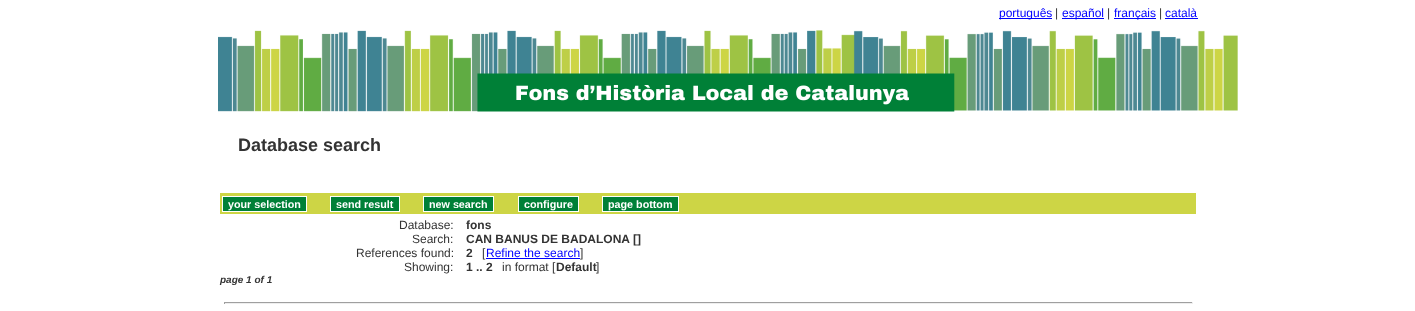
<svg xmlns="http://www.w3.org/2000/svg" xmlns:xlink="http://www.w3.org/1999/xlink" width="1415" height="311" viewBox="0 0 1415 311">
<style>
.cls-1{font:12px Liberation Sans;fill:#0000ff}
.cls-2{font:12px Liberation Sans;fill:#333333}
.cls-3{font:bold 18px Liberation Sans;fill:#333333}
.cls-4{font:bold 10.75px Liberation Sans;fill:#ffffff}
.cls-5{font:bold 12px Liberation Sans;fill:#333333}
.cls-6{font:italic bold 10px Liberation Sans;fill:#333333}
</style>
<rect width="100%" height="100%" fill="#ffffff"/>
<rect fill="#0000ff" x="999" y="18" width="53" height="1"/>
<rect fill="#0000ff" x="1062" y="18" width="42" height="1"/>
<rect fill="#0000ff" x="1114" y="18" width="42" height="1"/>
<rect fill="#0000ff" x="1165" y="18" width="33" height="1"/>
<image xlink:href="image0.png" x="218" y="30" width="1020" height="82"/>
<rect fill="#cdd545" x="220" y="193" width="976" height="21"/>
<rect fill="#008037" stroke="#ffffff" x="222.5" y="196.5" width="84" height="15"/>
<rect fill="#008037" stroke="#ffffff" x="330.5" y="196.5" width="69" height="15"/>
<rect fill="#008037" stroke="#ffffff" x="423.5" y="196.5" width="70" height="15"/>
<rect fill="#008037" stroke="#ffffff" x="518.5" y="196.5" width="60" height="15"/>
<rect fill="#008037" stroke="#ffffff" x="602.5" y="196.5" width="76" height="15"/>
<rect fill="#0000ff" x="486" y="258" width="94" height="1"/>
<rect fill="#9f9f9f" x="224" y="302" width="969" height="1"/>
<rect fill="#eeeeee" x="1192" y="302" width="1" height="2"/>
<rect fill="#eeeeee" x="224" y="303" width="969" height="1"/>
<rect fill="#9f9f9f" x="224" y="302" width="1" height="2"/>
<text class="cls-1" x="999" y="17">português</text>
<text class="cls-2" x="1055" y="17">|</text>
<text class="cls-1" x="1062" y="17">español</text>
<text class="cls-2" x="1107" y="17">|</text>
<text class="cls-1" x="1114" y="17">français</text>
<text class="cls-2" x="1159" y="17">|</text>
<text class="cls-1" x="1165" y="17">català</text>
<text class="cls-3" x="238" y="151">Database search</text>
<text class="cls-4" x="228" y="208">your selection</text>
<text class="cls-4" x="336" y="208">send result</text>
<text class="cls-4" x="429" y="208">new search</text>
<text class="cls-4" x="524" y="208">configure</text>
<text class="cls-4" x="608" y="208">page bottom</text>
<text class="cls-2" x="399" y="229">Database:</text>
<text class="cls-5" x="466" y="229">fons</text>
<text class="cls-2" x="412" y="243">Search:</text>
<text class="cls-5" x="466" y="243">CAN BANUS DE BADALONA []</text>
<text class="cls-2" x="356" y="257">References found:</text>
<text class="cls-5" x="466" y="257">2</text>
<text class="cls-2" x="482" y="257">[</text>
<text class="cls-1" x="486" y="257">Refine the search</text>
<text class="cls-2" x="580" y="257">]</text>
<text class="cls-2" x="404" y="271">Showing:</text>
<text class="cls-5" x="466" y="271">1 .. 2</text>
<text class="cls-2" x="502" y="271">in format [</text>
<text class="cls-5" x="556" y="271">Default</text>
<text class="cls-2" x="596" y="271">]</text>
<text class="cls-6" x="220" y="283">page 1 of 1</text>
</svg>
